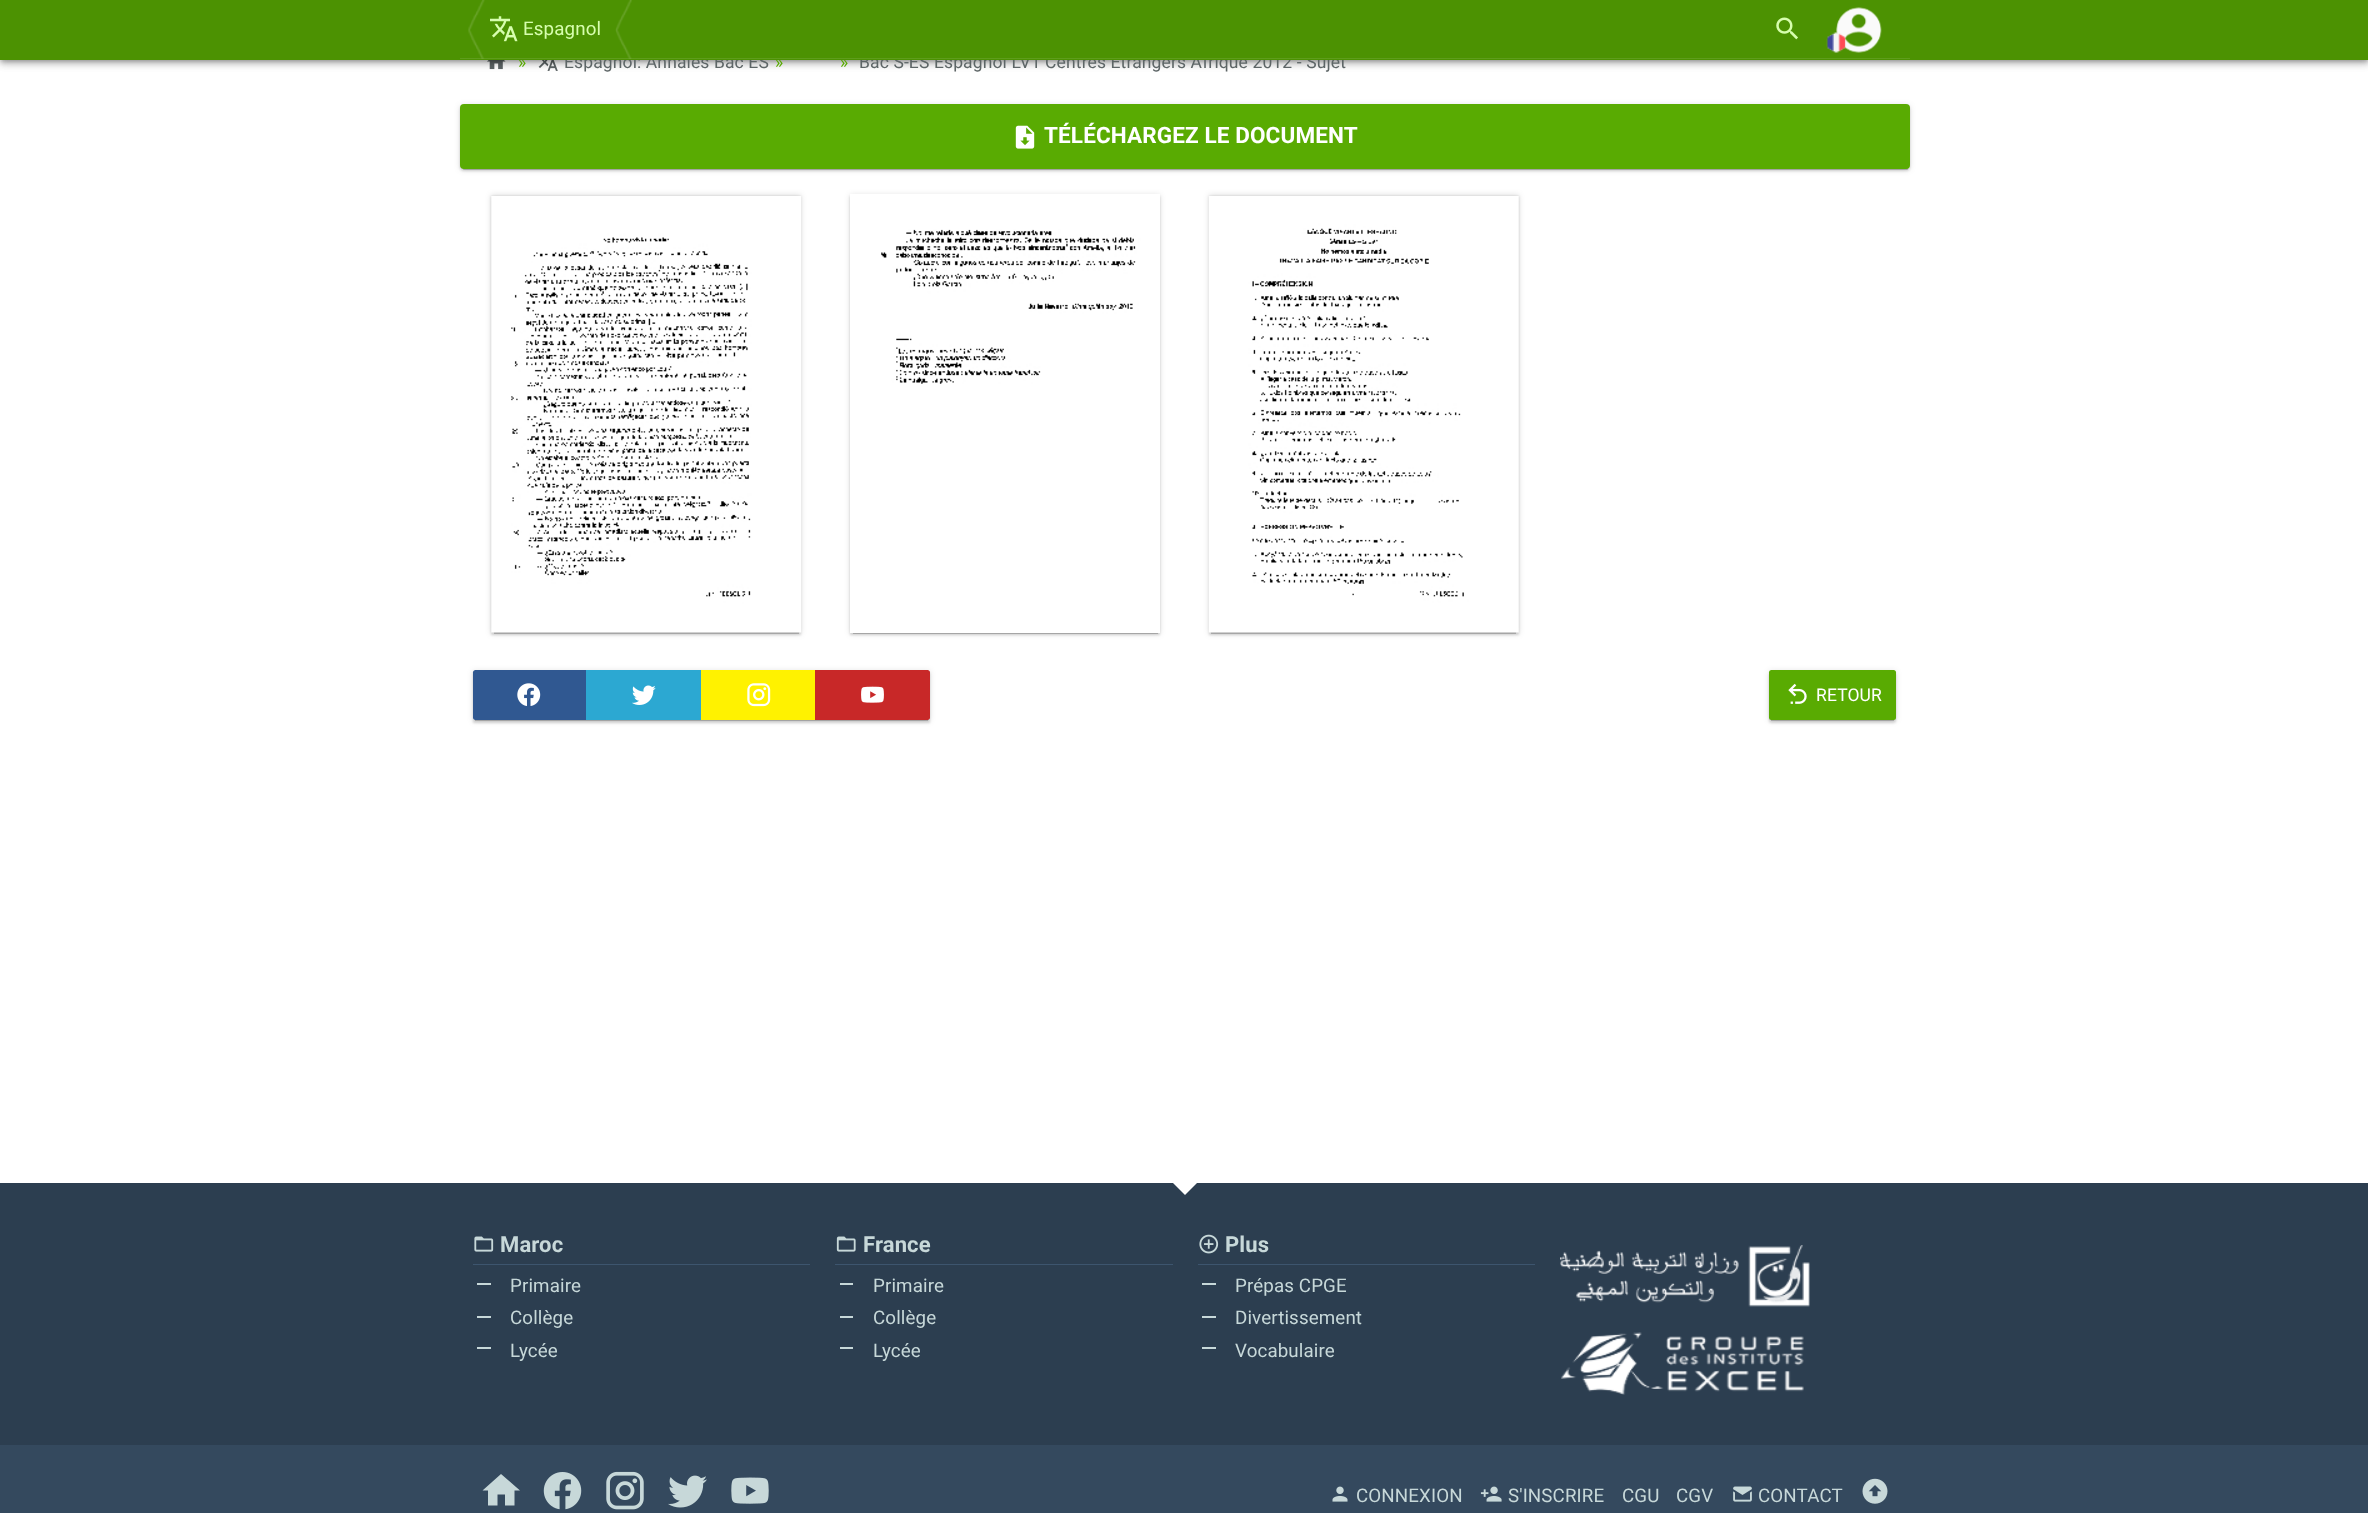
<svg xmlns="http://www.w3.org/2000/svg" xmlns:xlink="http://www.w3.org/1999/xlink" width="2368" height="1513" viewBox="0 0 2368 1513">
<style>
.cls-1{font:17.5px Roboto;letter-spacing:0.12px;fill:#59ab02}
.cls-2{font:17.5px Roboto;letter-spacing:0.12px;fill:#5d6566}
.cls-3{font:18.75px Roboto;letter-spacing:0.12px;fill:#d7feae}
.cls-4{font:bold 22.5px Roboto;letter-spacing:0.12px;fill:#ffffff}
.cls-5{font:17.5px Roboto;letter-spacing:0.12px;fill:#ffffff}
.cls-6{font:bold 22px Roboto;letter-spacing:0.12px;fill:#c7d8d9}
.cls-7{font:18.75px Roboto;letter-spacing:0.12px;fill:#c7d8d9}
</style>
<defs>
<clipPath id="clip1"><path d="M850 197H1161V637H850ZM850 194H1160V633H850Z" clip-rule="evenodd"/></clipPath>
<clipPath id="clip2"><path d="M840 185H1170V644H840ZM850 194H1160V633H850Z" clip-rule="evenodd"/></clipPath>
<clipPath id="clip3"><path d="M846 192H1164V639H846ZM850 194H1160V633H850Z" clip-rule="evenodd"/></clipPath>
</defs>
<rect width="100%" height="100%" fill="#ffffff"/>
<image xlink:href="image6.png" x="487" y="60" width="19" height="10"/>
<image xlink:href="image7.png" x="538" y="60" width="20" height="11"/>
<rect fill="#000000" fill-opacity="0.3" filter="blur(2.5px)" x="1" y="4" width="2367" height="57"/>
<rect fill="#000000" fill-opacity="0.12" filter="blur(6px)" x="0" y="1" width="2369" height="60"/>
<rect fill="#000000" fill-opacity="0.14" filter="blur(3px)" x="0" y="5" width="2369" height="60"/>
<rect fill="#000000" fill-opacity="0.2" filter="blur(0.5px)" x="463" y="110" width="1445" height="60" rx="1"/>
<rect fill="#000000" fill-opacity="0.12" filter="blur(3px)" x="460" y="105" width="1450" height="65" rx="4"/>
<rect fill="#000000" fill-opacity="0.14" filter="blur(1px)" x="460" y="106" width="1450" height="65" rx="4"/>
<rect fill="#59ab02" x="460" y="104" width="1450" height="65" rx="4"/>
<image xlink:href="image8.png" x="1015" y="125" width="20" height="24"/>
<rect fill="#000000" fill-opacity="0.2" filter="blur(0.5px)" x="494" y="200" width="305" height="434"/>
<rect fill="#000000" fill-opacity="0.12" filter="blur(3px)" x="491" y="195" width="310" height="439"/>
<rect fill="#000000" fill-opacity="0.14" filter="blur(1px)" x="491" y="196" width="310" height="439"/>
<image xlink:href="image9.png" x="491" y="196" width="311" height="437"/>
<g clip-path="url(#clip1)">
<rect fill="#000000" fill-opacity="0.2" filter="blur(0.5px)" x="853" y="200" width="305" height="434"/>
</g>
<g clip-path="url(#clip2)">
<rect fill="#000000" fill-opacity="0.12" filter="blur(3px)" x="850" y="195" width="310" height="439"/>
</g>
<g clip-path="url(#clip3)">
<rect fill="#000000" fill-opacity="0.14" filter="blur(1px)" x="850" y="196" width="310" height="439"/>
</g>
<image xlink:href="image10.png" x="850" y="229" width="310" height="404"/>
<rect fill="#000000" fill-opacity="0.2" filter="blur(0.5px)" x="1211" y="200" width="305" height="434"/>
<rect fill="#000000" fill-opacity="0.12" filter="blur(3px)" x="1209" y="195" width="310" height="439"/>
<rect fill="#000000" fill-opacity="0.14" filter="blur(1px)" x="1209" y="196" width="310" height="439"/>
<image xlink:href="image11.png" x="1208" y="196" width="311" height="437"/>
<rect fill="#000000" fill-opacity="0.2" filter="blur(0.5px)" x="475" y="676" width="453" height="45"/>
<rect fill="#000000" fill-opacity="0.12" filter="blur(3px)" x="473" y="671" width="457" height="50"/>
<rect fill="#000000" fill-opacity="0.14" filter="blur(1px)" x="473" y="673" width="457" height="50"/>
<path fill="#305891" d="M475.5 670H586V720H475.5C474 720 473 719 473 717.5V672.5C473 671 474 670 475.5 670Z"/>
<image xlink:href="image12.png" x="517" y="683" width="24" height="23"/>
<rect fill="#2ca8d2" x="586" y="670" width="115" height="50"/>
<image xlink:href="image13.png" x="632" y="685" width="24" height="20"/>
<rect fill="#fff200" x="701" y="670" width="114" height="50"/>
<image xlink:href="image14.png" x="747" y="683" width="24" height="24"/>
<path fill="#c82828" d="M815 670H927.5C929 670 930 671 930 672.5V717.5C930 719 929 720 927.5 720H815Z"/>
<image xlink:href="image15.png" x="861" y="686" width="23" height="17"/>
<rect fill="#000000" fill-opacity="0.2" filter="blur(0.5px)" x="1771" y="676" width="123" height="45"/>
<rect fill="#000000" fill-opacity="0.12" filter="blur(3px)" x="1769" y="671" width="127" height="50" rx="2.5"/>
<rect fill="#000000" fill-opacity="0.14" filter="blur(1px)" x="1769" y="673" width="127" height="50" rx="2.5"/>
<rect fill="#59ab02" x="1769" y="670" width="127" height="50" rx="2.5"/>
<image xlink:href="image16.png" x="1788" y="683" width="19" height="21"/>
<rect fill="#2c3e50" x="0" y="1183" width="2368" height="262"/>
<path fill="#ffffff" d="M1172.5 1182.5H1197.5L1185 1195Z"/>
<rect fill="#3d556e" x="473" y="1264" width="337" height="1"/>
<image xlink:href="image17.png" x="474" y="1236" width="20" height="16"/>
<rect fill="#c7d8d9" x="477" y="1283" width="14" height="2"/>
<rect fill="#c7d8d9" x="477" y="1316" width="14" height="2"/>
<rect fill="#c7d8d9" x="477" y="1347" width="14" height="2"/>
<rect fill="#3d556e" x="835" y="1264" width="338" height="1"/>
<image xlink:href="image18.png" x="836" y="1236" width="20" height="16"/>
<rect fill="#c7d8d9" x="840" y="1283" width="13" height="2"/>
<rect fill="#c7d8d9" x="840" y="1316" width="13" height="2"/>
<rect fill="#c7d8d9" x="840" y="1347" width="13" height="2"/>
<rect fill="#3d556e" x="1198" y="1264" width="337" height="1"/>
<image xlink:href="image19.png" x="1199" y="1234" width="20" height="20"/>
<rect fill="#c7d8d9" x="1202" y="1283" width="14" height="2"/>
<rect fill="#c7d8d9" x="1202" y="1316" width="14" height="2"/>
<rect fill="#c7d8d9" x="1202" y="1347" width="14" height="2"/>
<image xlink:href="image20.png" x="1560" y="1245" width="250" height="62"/>
<image xlink:href="image21.png" x="1561" y="1332" width="243" height="63"/>
<rect fill="#34495e" x="0" y="1445" width="2368" height="68"/>
<path fill="#c7d8d9" d="M497.5 1505.5V1494.5H505V1505.5H514.5V1490.5H520L501 1474L482.5 1490.5H488V1505.5Z"/>
<image xlink:href="image22.png" x="543" y="1472" width="39" height="38"/>
<image xlink:href="image23.png" x="606" y="1471" width="38" height="39"/>
<image xlink:href="image24.png" x="668" y="1475" width="39" height="33"/>
<image xlink:href="image25.png" x="731" y="1477" width="38" height="27"/>
<image xlink:href="image26.png" x="1332" y="1486" width="16" height="16"/>
<image xlink:href="image27.png" x="1480" y="1486" width="22" height="16"/>
<image xlink:href="image28.png" x="1733" y="1486" width="19" height="16"/>
<image xlink:href="image29.png" x="1862" y="1478" width="26" height="26"/>
<text class="cls-1" x="518" y="68">»</text>
<text class="cls-2" x="564" y="68">Espagnol: Annales Bac ES</text>
<text class="cls-1" x="775" y="68">»</text>
<text class="cls-1" x="840" y="68">»</text>
<text class="cls-2" x="859" y="68">Bac S-ES Espagnol LV1 Centres Etrangers Afrique 2012 - Sujet</text>
<rect fill="#4c9202" x="0" y="0" width="2368" height="60"/>
<image xlink:href="image4.png" x="1836" y="7" width="46" height="46"/>
<image xlink:href="image5.png" x="1826" y="32" width="21" height="21"/>
<image xlink:href="image3.png" x="1776" y="17" width="22" height="23"/>
<rect fill="#5e9d1b" x="460" y="58" width="1450" height="1"/>
<image xlink:href="image0.png" x="468" y="0" width="17" height="59"/>
<image xlink:href="image1.png" x="490" y="16" width="28" height="26"/>
<text class="cls-3" x="523" y="35">Espagnol</text>
<image xlink:href="image2.png" x="615" y="0" width="17" height="59"/>
<text class="cls-4" x="1044" y="143">TÉLÉCHARGEZ LE DOCUMENT</text>
<text class="cls-5" x="1816" y="701">RETOUR</text>
<text class="cls-6" x="500" y="1252">Maroc</text>
<text class="cls-7"><tspan x="510" y="1292">Primaire</tspan><tspan x="510" y="1324">Collège</tspan><tspan x="510" y="1357">Lycée</tspan></text>
<text class="cls-6" x="863" y="1252">France</text>
<text class="cls-7"><tspan x="873" y="1292">Primaire</tspan><tspan x="873" y="1324">Collège</tspan><tspan x="873" y="1357">Lycée</tspan></text>
<text class="cls-6" x="1225" y="1252">Plus</text>
<text class="cls-7"><tspan x="1235" y="1292">Prépas CPGE</tspan><tspan x="1235" y="1324">Divertissement</tspan><tspan x="1235" y="1357">Vocabulaire</tspan></text>
<text class="cls-7" x="1356" y="1502">CONNEXION</text>
<text class="cls-7" x="1508" y="1502">S'INSCRIRE</text>
<text class="cls-7" x="1622" y="1502">CGU</text>
<text class="cls-7" x="1676" y="1502">CGV</text>
<text class="cls-7" x="1758" y="1502">CONTACT</text>
</svg>
